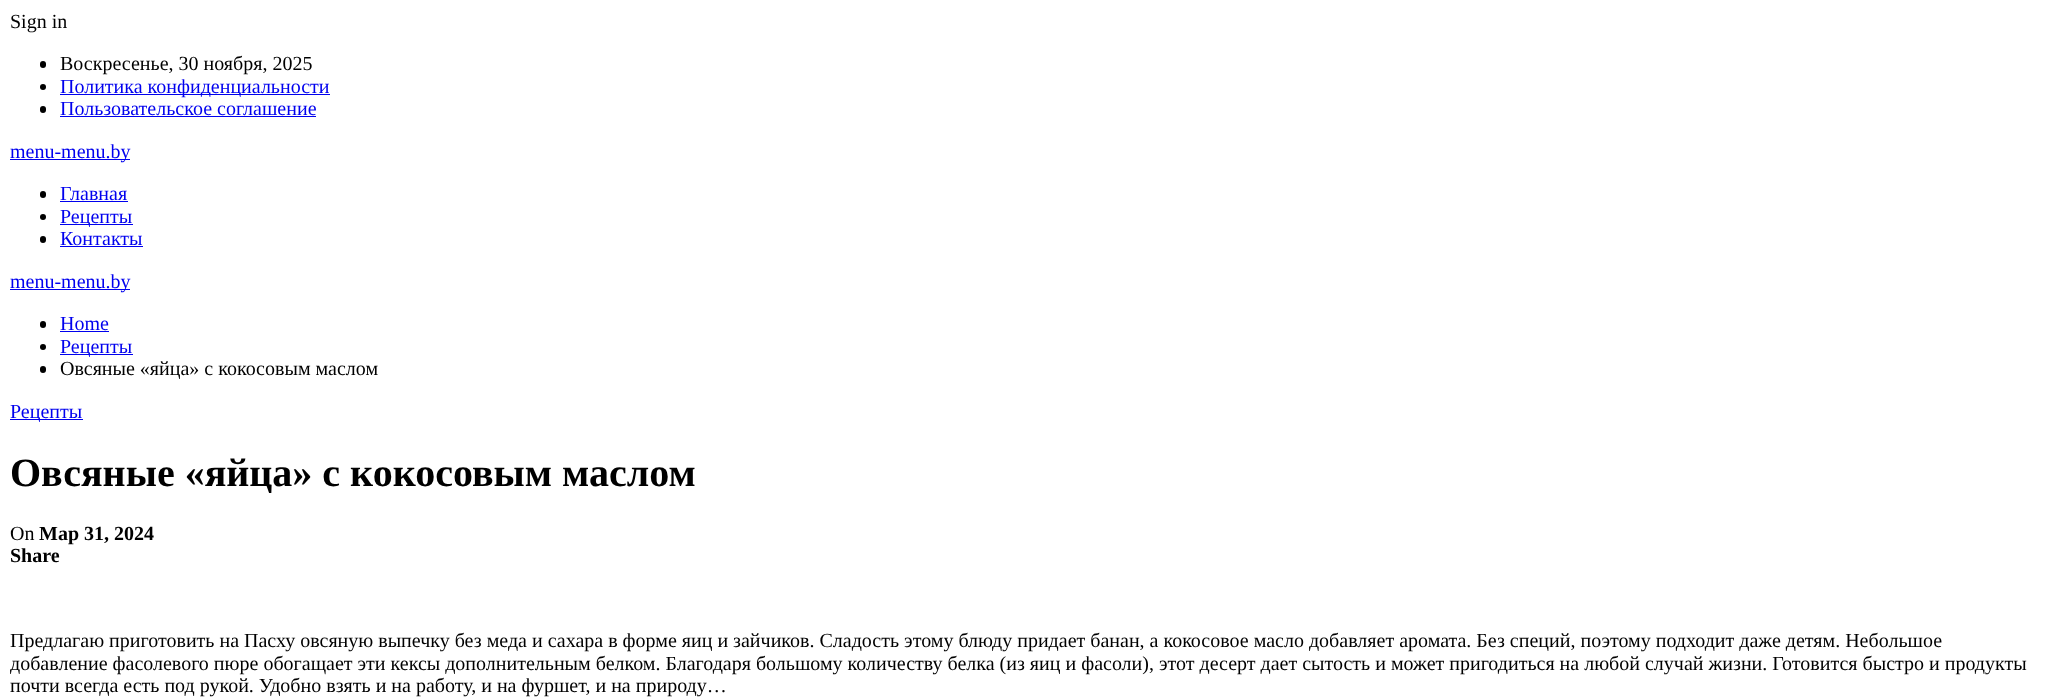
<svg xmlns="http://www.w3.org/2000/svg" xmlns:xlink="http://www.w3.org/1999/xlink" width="2050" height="699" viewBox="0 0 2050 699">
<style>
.cls-1{font:20px Liberation Serif;fill:#000000}
.cls-2{font:20px Liberation Serif;fill:#0000ee}
.cls-3{font:bold 40px Liberation Serif;fill:#000000}
.cls-4{font:bold 20px Liberation Serif;fill:#000000}
</style>
<rect width="100%" height="100%" fill="#ffffff"/>
<rect fill="#000000" x="40" y="61" width="6" height="7" rx="3"/>
<circle fill="#000000" cx="43" cy="87" r="3"/>
<rect fill="#0000ee" x="60" y="94" width="270" height="1"/>
<rect fill="#000000" x="40" y="106" width="6" height="7" rx="3"/>
<rect fill="#0000ee" x="60" y="116" width="256" height="1"/>
<rect fill="#0000ee" x="10" y="159" width="120" height="1"/>
<rect fill="#000000" x="40" y="191" width="6" height="7" rx="3"/>
<rect fill="#0000ee" x="60" y="201" width="68" height="1"/>
<circle fill="#000000" cx="43" cy="217" r="3"/>
<rect fill="#0000ee" x="60" y="224" width="73" height="1"/>
<rect fill="#000000" x="40" y="236" width="6" height="7" rx="3"/>
<rect fill="#0000ee" x="60" y="246" width="83" height="1"/>
<rect fill="#0000ee" x="10" y="289" width="120" height="1"/>
<rect fill="#000000" x="40" y="321" width="6" height="7" rx="3"/>
<rect fill="#0000ee" x="60" y="331" width="49" height="1"/>
<circle fill="#000000" cx="43" cy="347" r="3"/>
<rect fill="#0000ee" x="60" y="354" width="73" height="1"/>
<rect fill="#000000" x="40" y="366" width="6" height="7" rx="3"/>
<rect fill="#0000ee" x="10" y="419" width="73" height="1"/>
<text class="cls-1" x="10" y="28">Sign in</text>
<text class="cls-1" x="60" y="70">Воскресенье, 30 ноября, 2025</text>
<text class="cls-2"><tspan x="60" y="93">Политика конфиденциальности</tspan><tspan x="60" y="115">Пользовательское соглашение</tspan></text>
<text class="cls-2" x="10" y="158">menu-menu.by</text>
<text class="cls-2"><tspan x="60" y="200">Главная</tspan><tspan x="60" y="223">Рецепты</tspan><tspan x="60" y="245">Контакты</tspan></text>
<text class="cls-2" x="10" y="288">menu-menu.by</text>
<text class="cls-2"><tspan x="60" y="330">Home</tspan><tspan x="60" y="353">Рецепты</tspan></text>
<text class="cls-1" x="60" y="375">Овсяные «яйца» с кокосовым маслом</text>
<text class="cls-2" x="10" y="418">Рецепты</text>
<text class="cls-3" x="10" y="486">Овсяные «яйца» с кокосовым маслом</text>
<text class="cls-1" x="10" y="540">On</text>
<text class="cls-4" x="39" y="540">Мар 31, 2024</text>
<text class="cls-4" x="10" y="562">Share</text>
<text class="cls-1"><tspan x="10" y="647">Предлагаю приготовить на Пасху овсяную выпечку без меда и сахара в форме яиц и зайчиков. Сладость этому блюду придает банан, а кокосовое масло добавляет аромата. Без специй, поэтому подходит даже детям. Небольшое</tspan><tspan x="10" y="670">добавление фасолевого пюре обогащает эти кексы дополнительным белком. Благодаря большому количеству белка (из яиц и фасоли), этот десерт дает сытость и может пригодиться на любой случай жизни. Готовится быстро и продукты</tspan><tspan x="10" y="692">почти всегда есть под рукой. Удобно взять и на работу, и на фуршет, и на природу…</tspan></text>
</svg>
